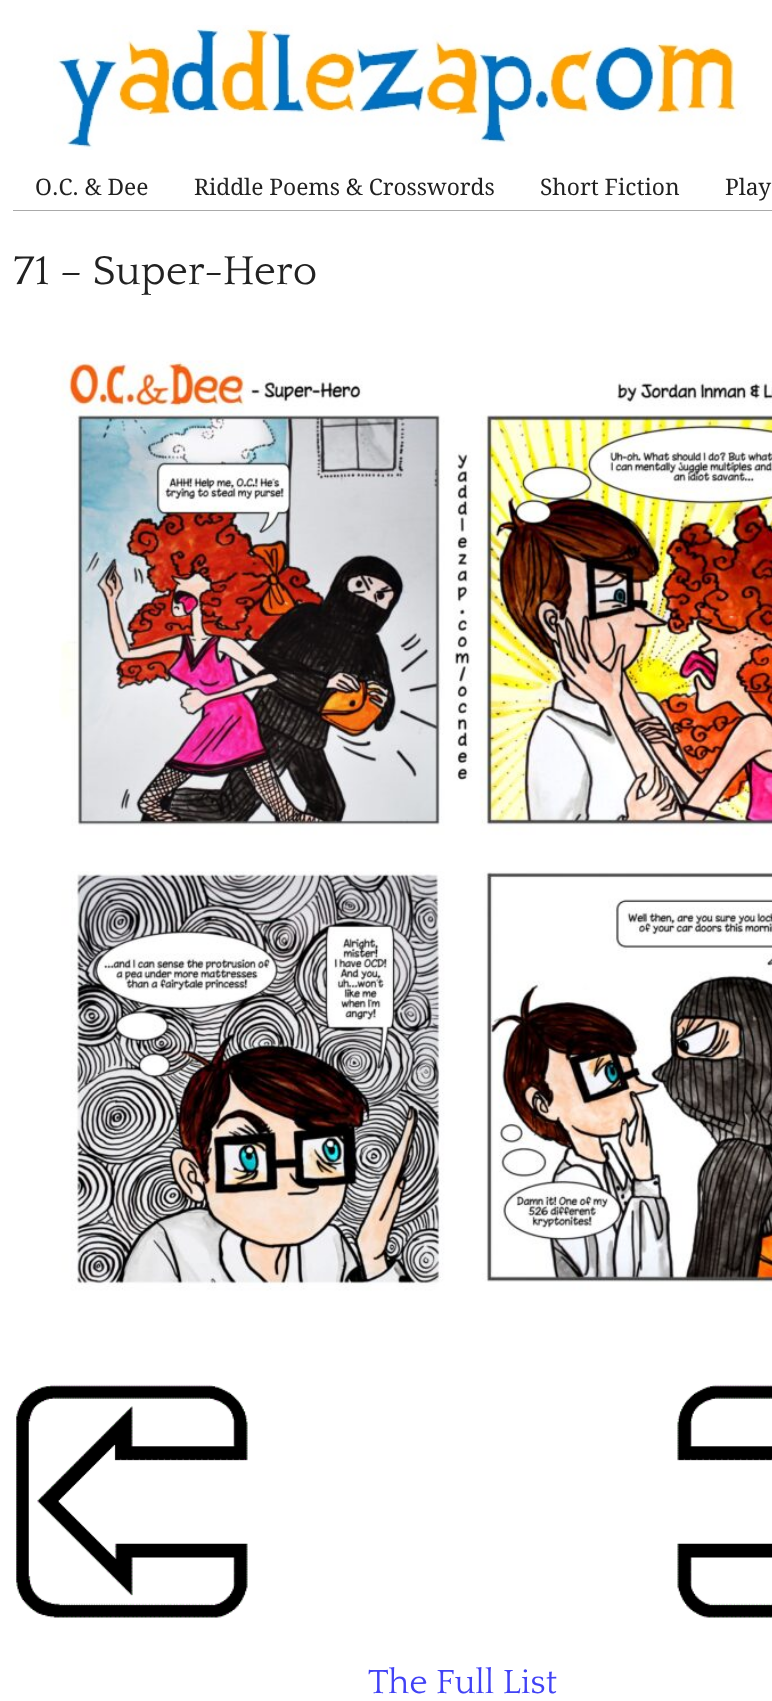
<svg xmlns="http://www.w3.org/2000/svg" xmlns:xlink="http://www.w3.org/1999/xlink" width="772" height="1701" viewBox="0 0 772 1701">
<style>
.cls-1{font:22.75px Droid Serif;fill:#222222}
.cls-2{font:42px Quattrocento;fill:#222222}
.cls-3{font:35px Quattrocento;fill:#4142f6}
</style>
<rect width="100%" height="100%" fill="#ffffff"/>
<image xlink:href="image0.png" x="53" y="25" width="693" height="125"/>
<rect fill="#aaaaaa" x="13" y="210" width="759" height="1"/>
<image xlink:href="image1.png" x="59" y="360" width="713" height="931"/>
<image xlink:href="image2.png" x="16" y="1384" width="232" height="234"/>
<image xlink:href="image3.png" x="677" y="1384" width="95" height="234"/>
<text class="cls-1" x="35" y="195">O.C. &amp; Dee</text>
<text class="cls-1" x="194" y="195">Riddle Poems &amp; Crosswords</text>
<text class="cls-1" x="540" y="195">Short Fiction</text>
<text class="cls-1" x="725" y="195">Play</text>
<text class="cls-2" x="13" y="284">71 – Super-Hero</text>
<text class="cls-3" x="368" y="1693">The Full List</text>
</svg>
